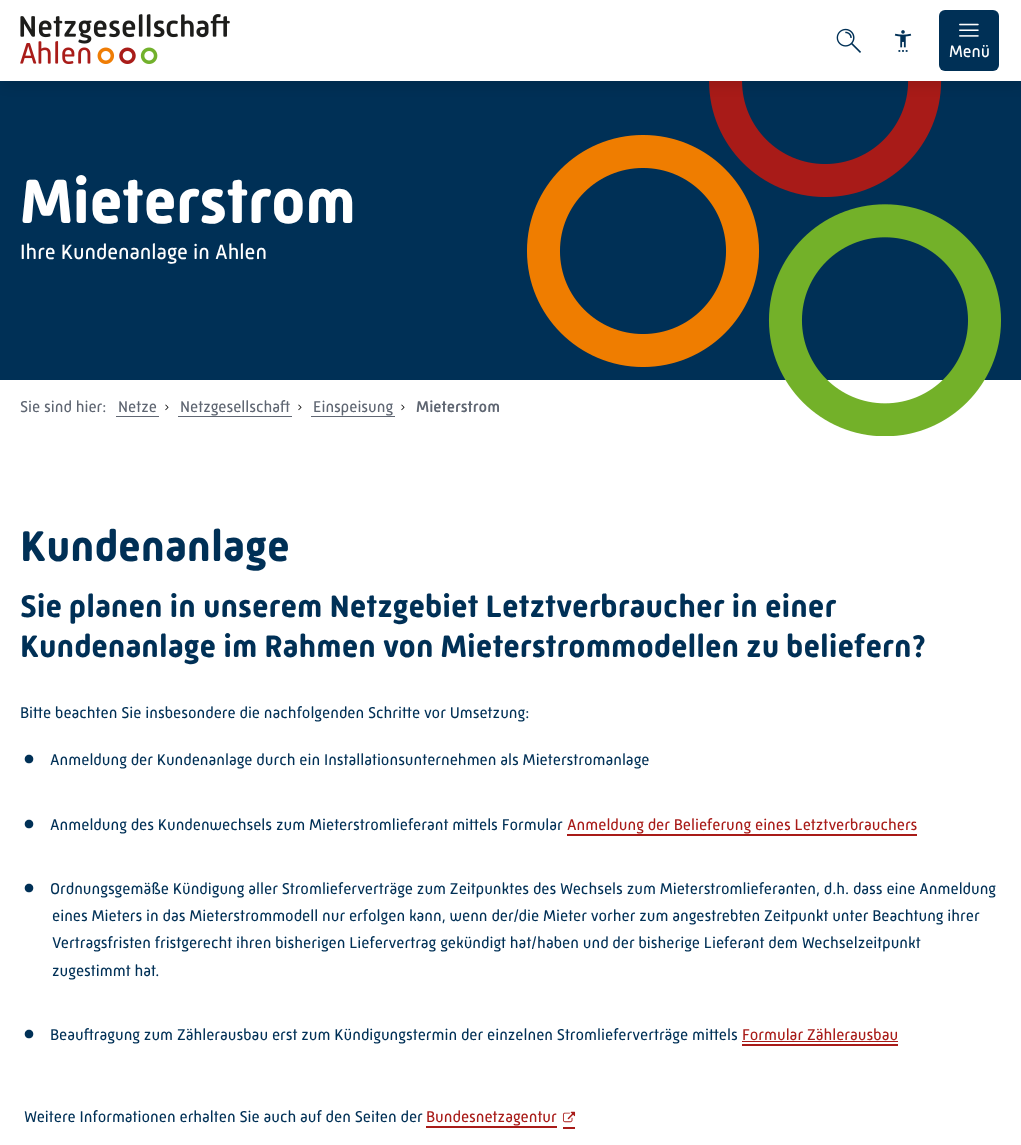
<svg xmlns="http://www.w3.org/2000/svg" xmlns:xlink="http://www.w3.org/1999/xlink" width="1021" height="1145" viewBox="0 0 1021 1145">
<style>
.cls-1{font:17px 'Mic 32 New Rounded';fill:#ffffff}
.cls-2{font:bold 64px 'Mic 32 New Rounded';letter-spacing:-0.5px;fill:#ffffff}
.cls-3{font:21.25px 'Mic 32 New Rounded';fill:#ffffff}
.cls-4{font:16px 'Mic 32 New Rounded';fill:#5f6672}
.cls-5{font:500 16px 'Mic 32 New Rounded';fill:#5f6672}
.cls-6{font:bold 44px 'Mic 32 New Rounded';fill:#003056}
.cls-7{font:bold 32px 'Mic 32 New Rounded';fill:#003056}
.cls-8{font:16px 'Mic 32 New Rounded';fill:#003056}
.cls-9{font:10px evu;fill:#003056}
.cls-10{font:16px 'Mic 32 New Rounded';fill:#a81b18}
.cls-11{font:12px evu;fill:#a81b18}
</style>
<rect width="100%" height="100%" fill="#ffffff"/>
<rect fill="#003056" x="0" y="81" width="1021" height="299"/>
<image xlink:href="image4.png" x="527" y="81" width="474" height="355"/>
<rect fill="#000000" fill-opacity="0.1" filter="blur(6px)" x="3" y="5" width="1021" height="81"/>
<rect fill="#ffffff" x="0" y="0" width="1021" height="81"/>
<image xlink:href="image0.png" x="20" y="14" width="210" height="50"/>
<image xlink:href="image1.png" x="836" y="28" width="25" height="25"/>
<image xlink:href="image2.png" x="894" y="30" width="18" height="22"/>
<rect fill="#003056" x="939" y="10" width="60" height="61" rx="6"/>
<image xlink:href="image3.png" x="959" y="23" width="20" height="14"/>
<rect fill="#5f6672" x="116" y="416" width="43" height="1"/>
<image xlink:href="image5.png" x="165" y="404" width="4" height="7"/>
<rect fill="#5f6672" x="178" y="416" width="114" height="1"/>
<image xlink:href="image5.png" x="298" y="404" width="4" height="7"/>
<rect fill="#5f6672" x="311" y="416" width="84" height="1"/>
<image xlink:href="image5.png" x="401" y="404" width="4" height="7"/>
<rect fill="#a81b18" x="567" y="834" width="350" height="2"/>
<rect fill="#a81b18" x="742" y="1044" width="156" height="2"/>
<rect fill="#a81b18" x="742" y="1041" width="156" height="1"/>
<rect fill="#a81b18" x="426" y="1126" width="131" height="2"/>
<rect fill="#a81b18" x="563" y="1127" width="12" height="2"/>
<text class="cls-1" x="949" y="57">Menü</text>
<text class="cls-2" x="20" y="223">Mieterstrom</text>
<text class="cls-3" x="20" y="259">Ihre Kundenanlage in Ahlen</text>
<text class="cls-4" x="20" y="412">Sie sind hier:</text>
<text class="cls-4" x="118" y="412">Netze</text>
<text class="cls-4" x="180" y="412">Netzgesellschaft</text>
<text class="cls-4" x="313" y="412">Einspeisung</text>
<text class="cls-5" x="416" y="412">Mieterstrom</text>
<text class="cls-6" x="20" y="561">Kundenanlage</text>
<text class="cls-7"><tspan x="20" y="617">Sie planen in unserem Netzgebiet Letztverbraucher in einer</tspan><tspan x="20" y="657">Kundenanlage im Rahmen von Mieterstrommodellen zu beliefern?</tspan></text>
<text class="cls-8" x="20" y="718">Bitte beachten Sie insbesondere die nachfolgenden Schritte vor Umsetzung:</text>
<text class="cls-9" x="24" y="764">"</text>
<text class="cls-8" x="50" y="765">Anmeldung der Kundenanlage durch ein Installationsunternehmen als Mieterstromanlage</text>
<text class="cls-9" x="24" y="829">"</text>
<text class="cls-8" x="50" y="830">Anmeldung des Kundenwechsels zum Mieterstromlieferant mittels Formular</text>
<text class="cls-10" x="567" y="830">Anmeldung der Belieferung eines Letztverbrauchers</text>
<text class="cls-9" x="24" y="893">"</text>
<text class="cls-8" x="50" y="894">Ordnungsgemäße Kündigung aller Stromlieferverträge zum Zeitpunktes des Wechsels zum Mieterstromlieferanten, d.h. dass eine Anmeldung</text>
<text class="cls-8"><tspan x="52" y="921">eines Mieters in das Mieterstrommodell nur erfolgen kann, wenn der/die Mieter vorher zum angestrebten Zeitpunkt unter Beachtung ihrer</tspan><tspan x="52" y="948">Vertragsfristen fristgerecht ihren bisherigen Liefervertrag gekündigt hat/haben und der bisherige Lieferant dem Wechselzeitpunkt</tspan><tspan x="52" y="976">zugestimmt hat.</tspan></text>
<text class="cls-9" x="24" y="1039">"</text>
<text class="cls-8" x="50" y="1040">Beauftragung zum Zählerausbau erst zum Kündigungstermin der einzelnen Stromlieferverträge mittels</text>
<text class="cls-10" x="742" y="1040">Formular Zählerausbau</text>
<text class="cls-8" x="24" y="1122">Weitere Informationen erhalten Sie auch auf den Seiten der</text>
<text class="cls-10" x="426" y="1122">Bundesnetzagentur</text>
<text class="cls-11" x="563" y="1123">/</text>
</svg>
